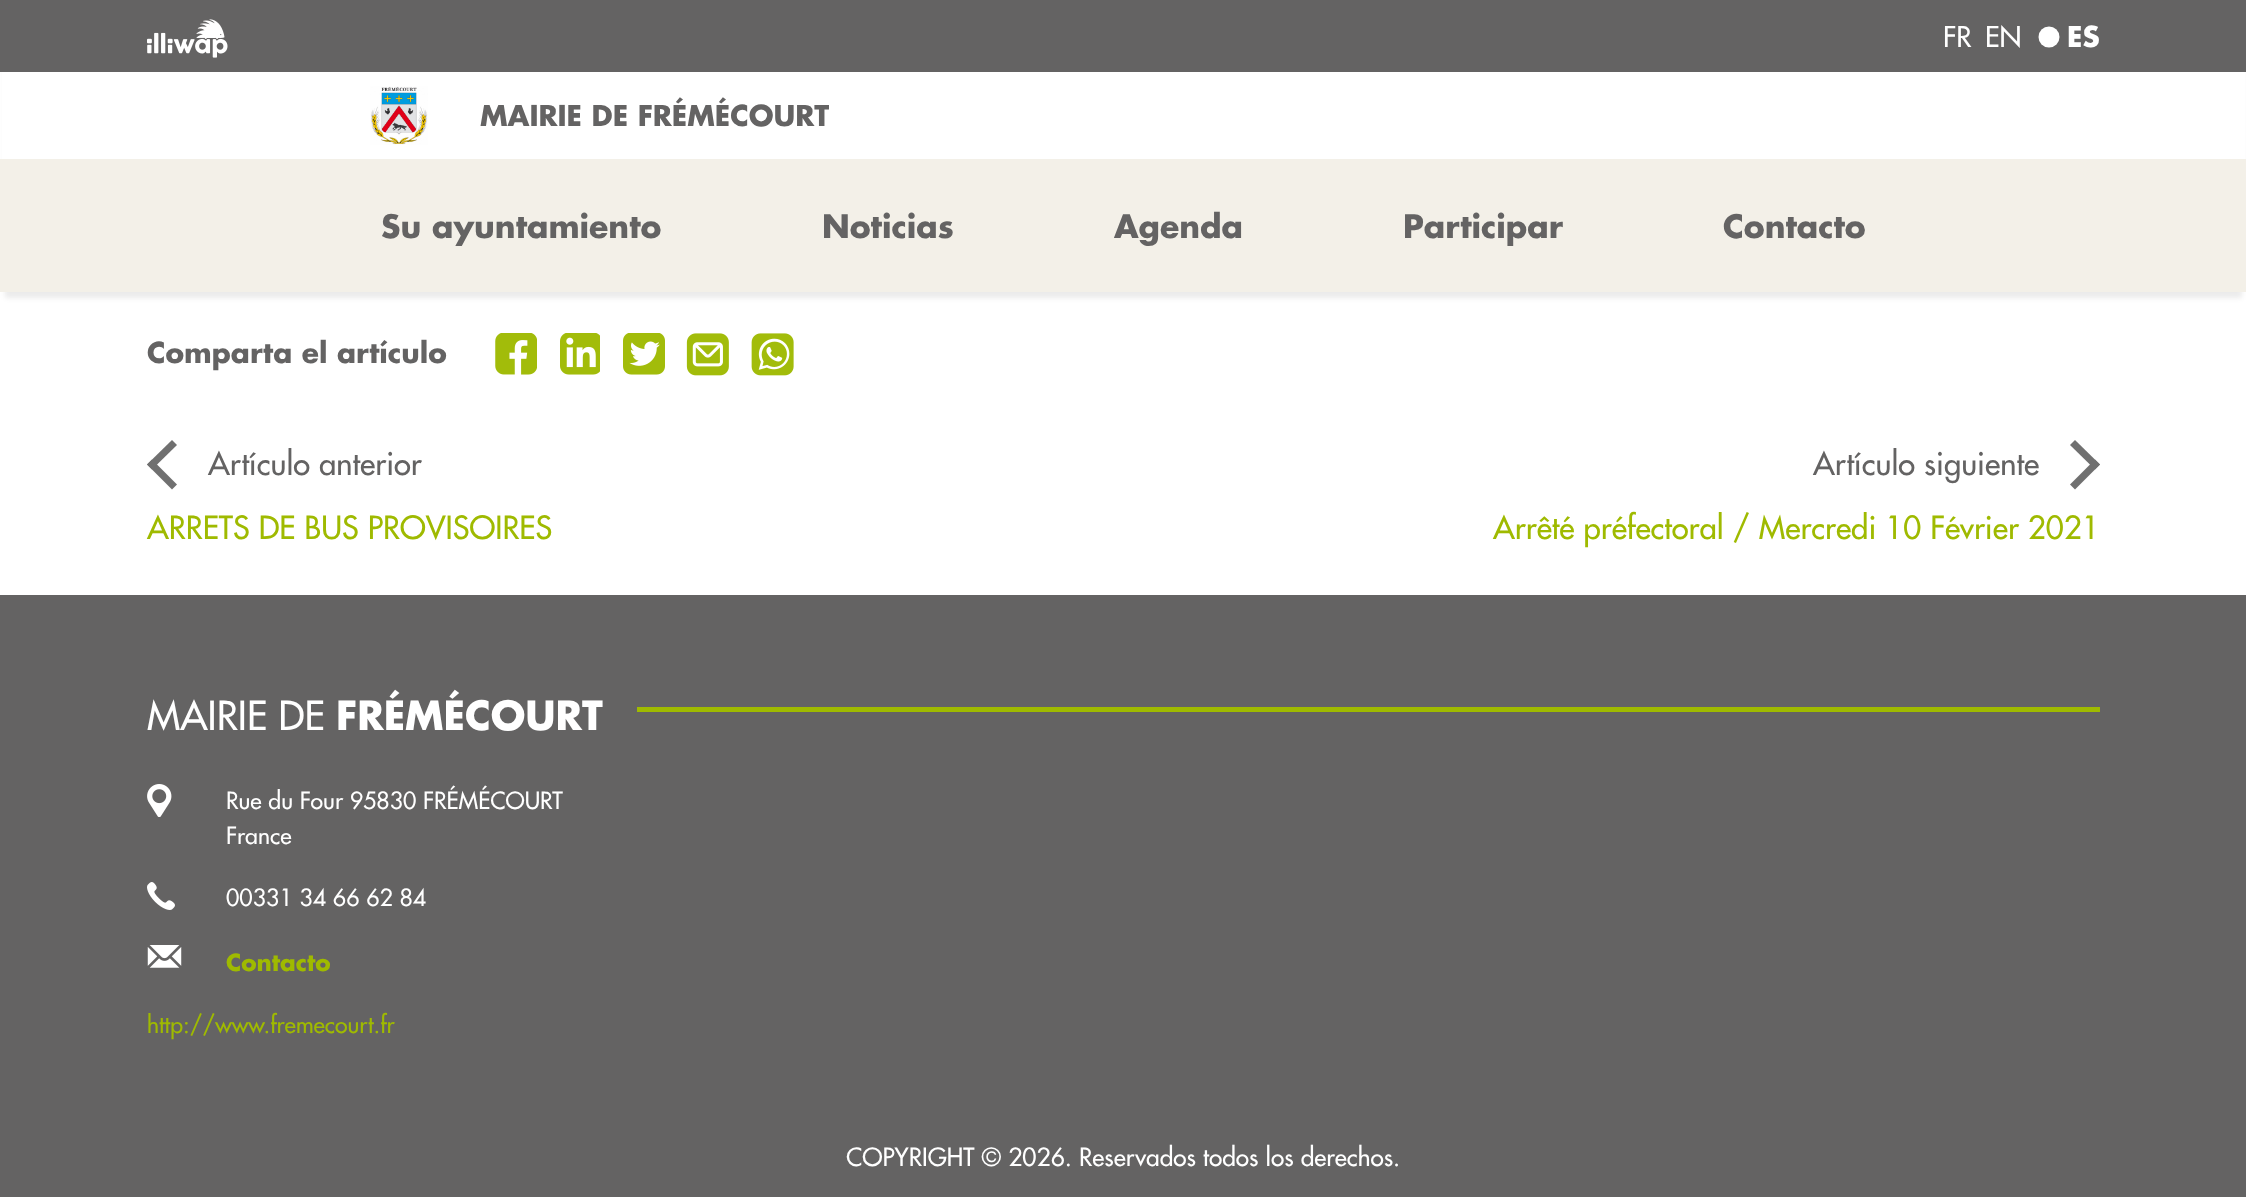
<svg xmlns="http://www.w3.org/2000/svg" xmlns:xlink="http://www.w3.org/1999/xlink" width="2246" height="1197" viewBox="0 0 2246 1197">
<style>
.cls-1{font:28px Futura;fill:#ffffff}
.cls-2{font:bold 28px Futura;fill:#ffffff}
.cls-3{font:bold 28px Futura;fill:#646363}
.cls-4{font:bold 31.5px Futura;fill:#646363}
.cls-5{font:31.1px Futura;fill:#646363}
.cls-6{font:31.1px Futura;fill:#9fba00}
.cls-7{font:39px Futura;fill:#ffffff}
.cls-8{font:bold 39px Futura;fill:#ffffff}
.cls-9{font:23.1px Futura;fill:#ffffff}
.cls-10{font:bold 23.1px Futura;fill:#9fba00}
.cls-11{font:23.1px Futura;fill:#9fba00}
.cls-12{font:24.5px Futura;fill:#ffffff}
</style>
<rect width="100%" height="100%" fill="#ffffff"/>
<rect fill="#000000" fill-opacity="0.08" filter="blur(2.5px)" x="5" y="16" width="2237" height="282"/>
<rect fill="#ffffff" x="2" y="72" width="2243" height="87"/>
<rect fill="#646363" x="0" y="0" width="2246" height="72"/>
<image xlink:href="image0.png" x="147" y="19" width="81" height="39"/>
<circle fill="#ffffff" cx="2049" cy="37" r="10.5"/>
<image xlink:href="image1.png" x="370" y="86" width="58" height="59"/>
<rect fill="#f3f0e8" x="0" y="159" width="2246" height="133"/>
<image xlink:href="image2.png" x="495" y="333" width="42" height="42"/>
<image xlink:href="image3.png" x="560" y="333" width="40" height="42"/>
<image xlink:href="image4.png" x="623" y="333" width="42" height="42"/>
<image xlink:href="image5.png" x="686" y="333" width="43" height="43"/>
<image xlink:href="image6.png" x="751" y="333" width="43" height="43"/>
<path fill="#707070" d="M172 489.5L147 464.5L152 459.5L177 484.5Z"/>
<path fill="#707070" d="M147 464.5L172 440L177 445L152 469.5Z"/>
<path fill="#707070" d="M2075 440L2100 464.5L2095 469.5L2070 445Z"/>
<path fill="#707070" d="M2100 464.5L2075 489.5L2070 484.5L2095 459.5Z"/>
<rect fill="#646363" x="0" y="595" width="2246" height="602"/>
<rect fill="#9fba00" x="637" y="707" width="1463" height="5"/>
<image xlink:href="image7.png" x="147" y="784" width="25" height="33"/>
<image xlink:href="image8.png" x="147" y="882" width="28" height="28"/>
<image xlink:href="image9.png" x="147" y="945" width="35" height="23"/>
<text class="cls-1" x="1943" y="47">FR</text>
<text class="cls-1" x="1985" y="47">EN</text>
<text class="cls-2" x="2067" y="47">ES</text>
<text class="cls-3" x="480" y="126">MAIRIE DE FRÉMÉCOURT</text>
<text class="cls-4" x="381" y="238">Su ayuntamiento</text>
<text class="cls-4" x="822" y="238">Noticias</text>
<text class="cls-4" x="1114" y="238">Agenda</text>
<text class="cls-4" x="1403" y="238">Participar</text>
<text class="cls-4" x="1723" y="238">Contacto</text>
<text class="cls-3" x="147" y="363">Comparta el artículo</text>
<text class="cls-5" x="208" y="475">Artículo anterior</text>
<text class="cls-5" x="1813" y="475">Artículo siguiente</text>
<text class="cls-6" x="147" y="539">ARRETS DE BUS PROVISOIRES</text>
<text class="cls-6" x="1493" y="539">Arrêté préfectoral / Mercredi 10 Février 2021</text>
<text class="cls-7" x="147" y="730">MAIRIE DE</text>
<text class="cls-8" x="336" y="730">FRÉMÉCOURT</text>
<text class="cls-9"><tspan x="226" y="809">Rue du Four 95830 FRÉMÉCOURT</tspan><tspan x="226" y="844">France</tspan></text>
<text class="cls-9" x="226" y="906">00331 34 66 62 84</text>
<text class="cls-10" x="226" y="971">Contacto</text>
<text class="cls-11" x="147" y="1033">http://www.fremecourt.fr</text>
<text class="cls-12" x="846" y="1166">COPYRIGHT © 2026. Reservados todos los derechos.</text>
</svg>
